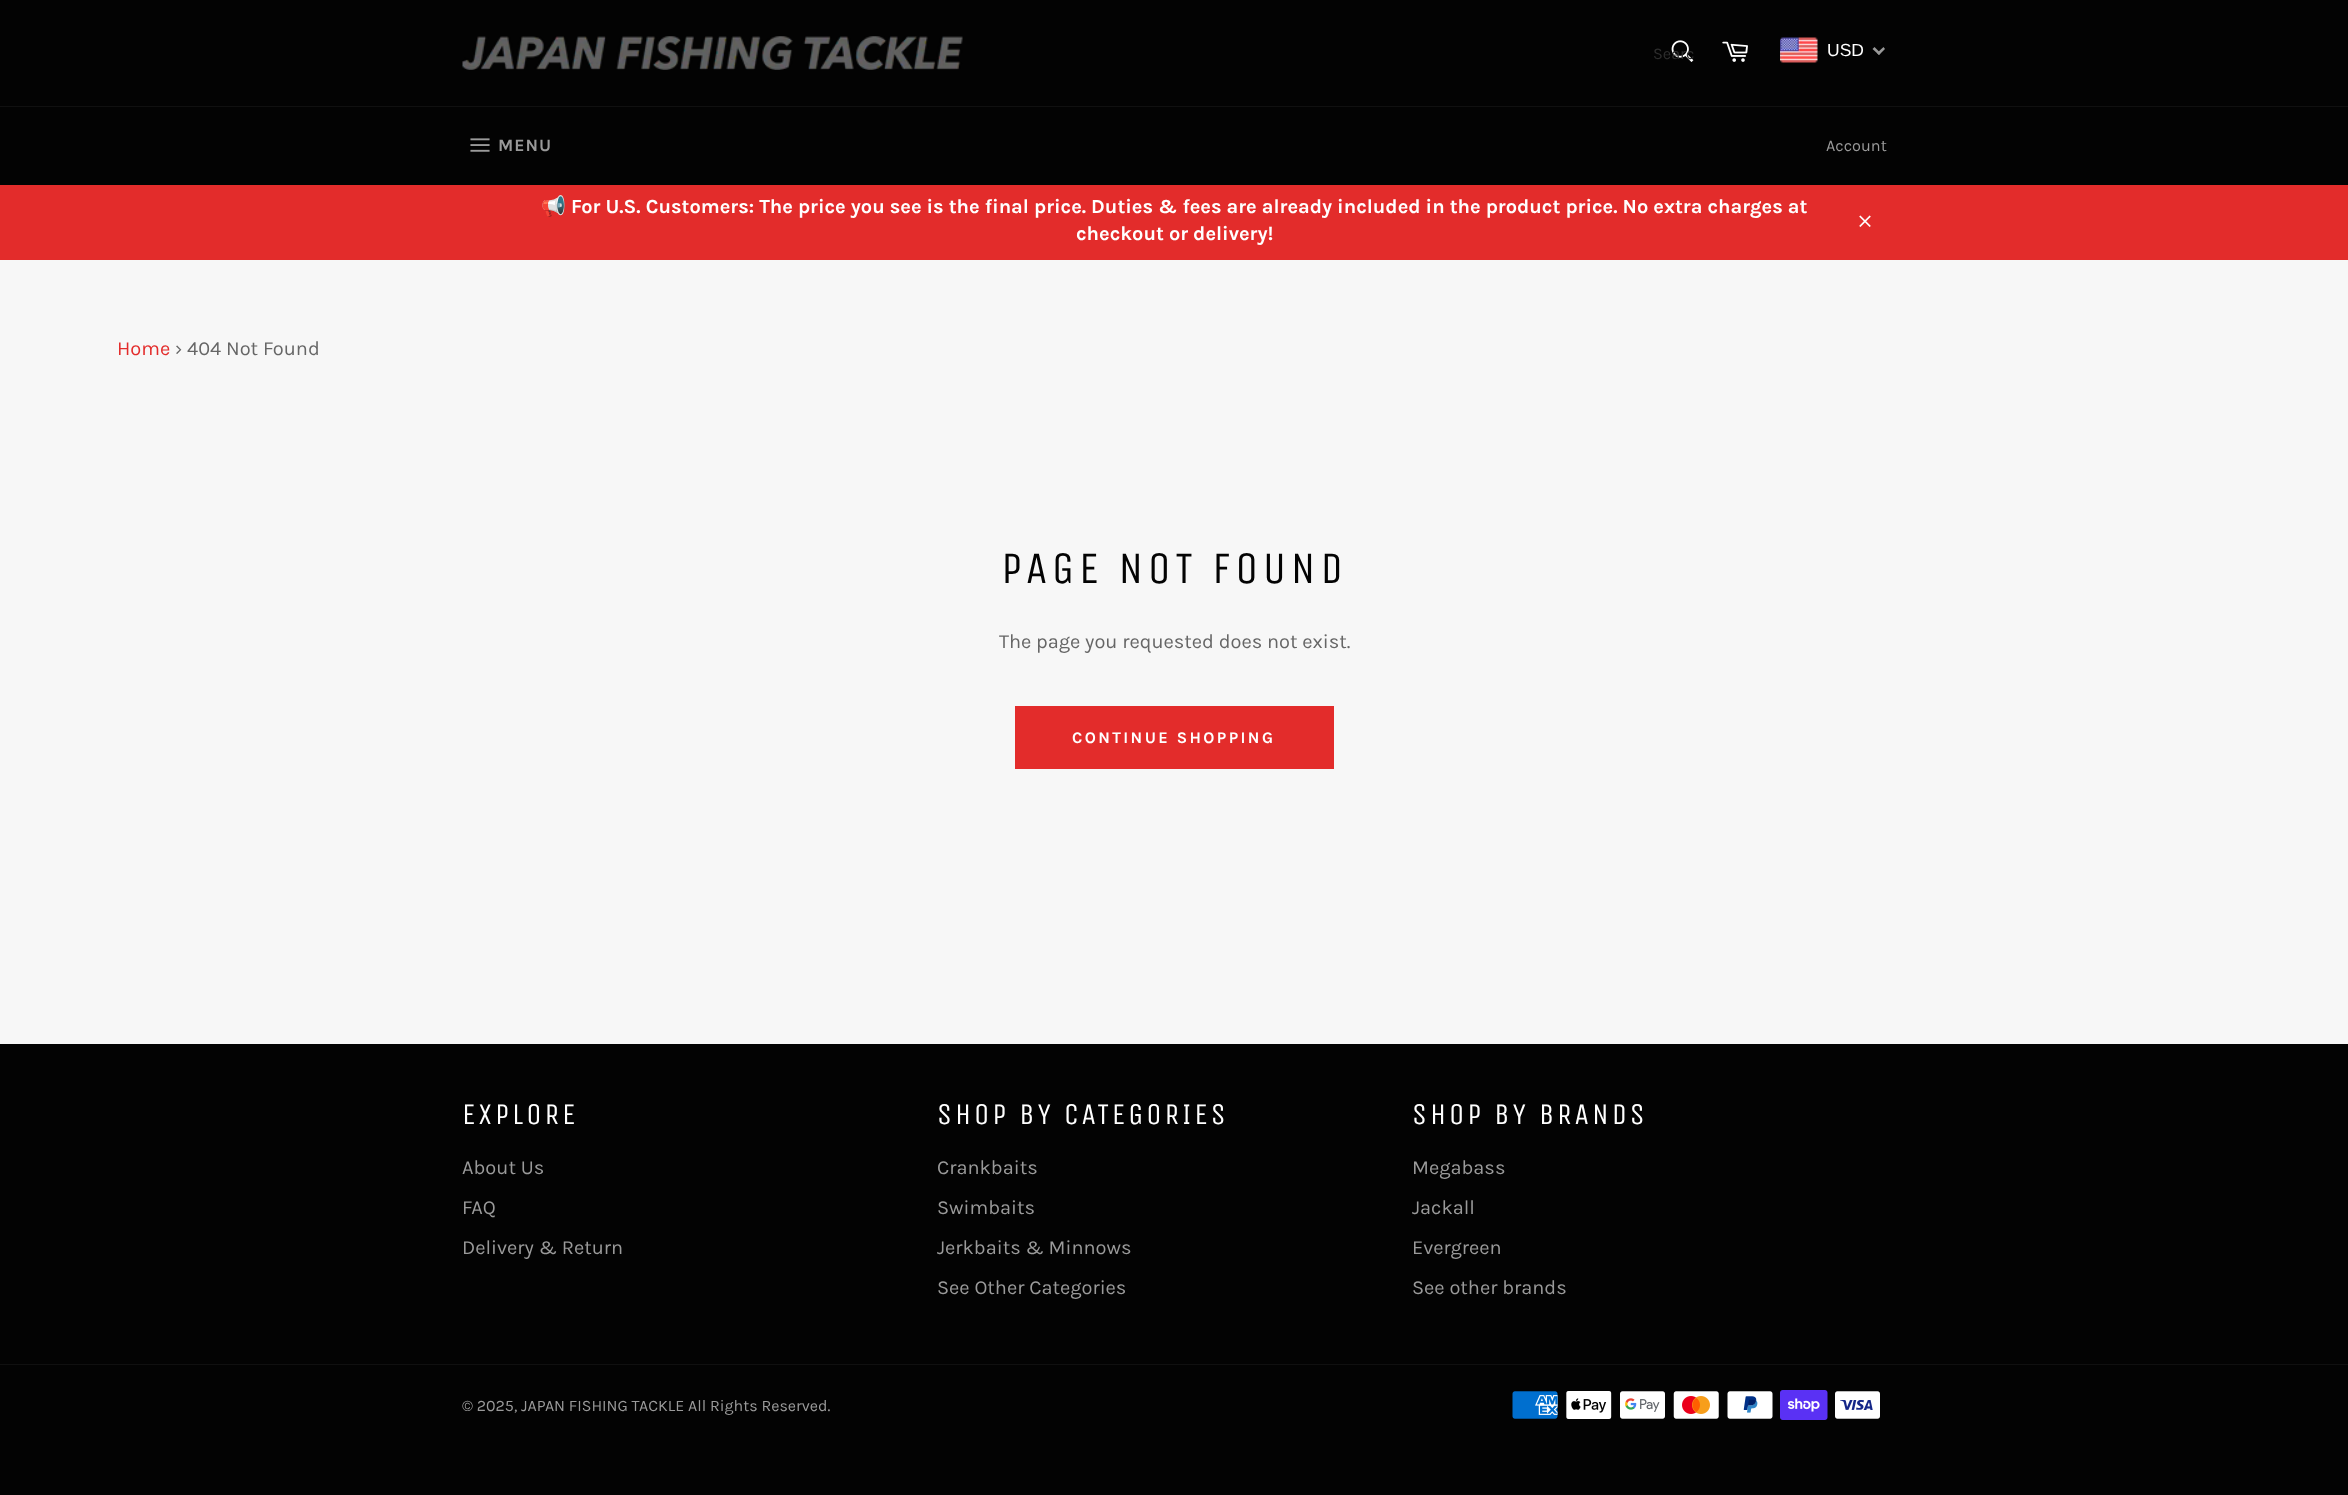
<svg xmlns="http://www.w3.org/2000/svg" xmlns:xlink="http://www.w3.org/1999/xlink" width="2348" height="1495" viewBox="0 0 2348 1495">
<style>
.cls-1{font:16.25px Karla;fill:#2d2d2d}
.cls-2{font:17.5px Liberation Sans;fill:#ffffff}
.cls-3{font:bold 17.5px Karla;letter-spacing:1px;fill:#9a9a9a}
.cls-4{font:16.25px Karla;fill:#9a9a9a}
.cls-5{font:bold 20px Noto Color Emoji;fill:#ffffff}
.cls-6{font:bold 20px Karla;fill:#ffffff}
.cls-7{font:20px Karla;fill:#e32c2b}
.cls-8{font:20px Karla;fill:#666666}
.cls-9{font:45px Unica One;letter-spacing:4.5px;fill:#030303}
.cls-10{font:bold 16.25px Karla;letter-spacing:2.4px;fill:#ffffff}
.cls-11{font:30px Unica One;letter-spacing:3px;fill:#ffffff}
.cls-12{font:20px Karla;fill:#9a9a9a}
.cls-13{font:16px Karla;fill:#9a9a9a}
</style>
<rect width="100%" height="100%" fill="#030303"/>
<rect fill="#f7f7f7" x="0" y="260" width="2348" height="784"/>
<image xlink:href="image0.png" x="462" y="36" width="501" height="34"/>
<image xlink:href="image1.png" x="1671" y="40" width="23" height="22"/>
<image xlink:href="image2.png" x="1722" y="41" width="26" height="21"/>
<image xlink:href="image3.png" x="1780" y="37" width="38" height="26"/>
<path fill="#999999" d="M1883.5 47L1885 49L1879 55L1877 53Z"/>
<path fill="#999999" d="M1874.5 47L1880.5 53L1879 55L1872.5 49Z"/>
<rect fill="#101010" x="0" y="106" width="2348" height="1"/>
<image xlink:href="image4.png" x="470" y="138" width="20" height="14"/>
<rect fill="#e32c2b" x="0" y="185" width="2348" height="75"/>
<image xlink:href="image5.png" x="1859" y="215" width="12" height="12"/>
<rect fill="#e32c2b" x="1015" y="706" width="319" height="63"/>
<rect fill="#101010" x="0" y="1364" width="2348" height="1"/>
<image xlink:href="image6.png" x="1512" y="1391" width="46" height="28"/>
<image xlink:href="image7.png" x="1566" y="1391" width="46" height="28"/>
<image xlink:href="image8.png" x="1620" y="1391" width="45" height="28"/>
<image xlink:href="image9.png" x="1673" y="1391" width="46" height="28"/>
<image xlink:href="image10.png" x="1727" y="1391" width="46" height="28"/>
<image xlink:href="image11.png" x="1780" y="1390" width="48" height="30"/>
<image xlink:href="image12.png" x="1835" y="1391" width="45" height="28"/>
<text class="cls-1" x="1653" y="59">Searc</text>
<text class="cls-2" x="1827" y="56">USD</text>
<text class="cls-3" x="498" y="151">MENU</text>
<text class="cls-4" x="1826" y="151">Account</text>
<text class="cls-5" x="541" y="213">📢</text>
<text class="cls-6" x="571" y="213">For U.S. Customers: The price you see is the final price. Duties &amp; fees are already included in the product price. No extra charges at</text>
<text class="cls-6" x="1076" y="240">checkout or delivery!</text>
<text class="cls-7" x="117" y="355">Home</text>
<text class="cls-8" x="175" y="355">› 404 Not Found</text>
<text class="cls-9" x="1001" y="583">PAGE NOT FOUND</text>
<text class="cls-8" x="999" y="648">The page you requested does not exist.</text>
<text class="cls-10" x="1072" y="743">CONTINUE SHOPPING</text>
<text class="cls-11" x="462" y="1124">EXPLORE</text>
<text class="cls-12" x="462" y="1174">About Us</text>
<text class="cls-12" x="462" y="1214">FAQ</text>
<text class="cls-12" x="462" y="1254">Delivery &amp; Return</text>
<text class="cls-11" x="937" y="1124">SHOP BY CATEGORIES</text>
<text class="cls-12" x="937" y="1174">Crankbaits</text>
<text class="cls-12" x="937" y="1214">Swimbaits</text>
<text class="cls-12" x="937" y="1254">Jerkbaits &amp; Minnows</text>
<text class="cls-12" x="937" y="1294">See Other Categories</text>
<text class="cls-11" x="1412" y="1124">SHOP BY BRANDS</text>
<text class="cls-12" x="1412" y="1174">Megabass</text>
<text class="cls-12" x="1412" y="1214">Jackall</text>
<text class="cls-12" x="1412" y="1254">Evergreen</text>
<text class="cls-12" x="1412" y="1294">See other brands</text>
<text class="cls-13" x="462" y="1411">© 2025, JAPAN FISHING TACKLE All Rights Reserved.</text>
</svg>
